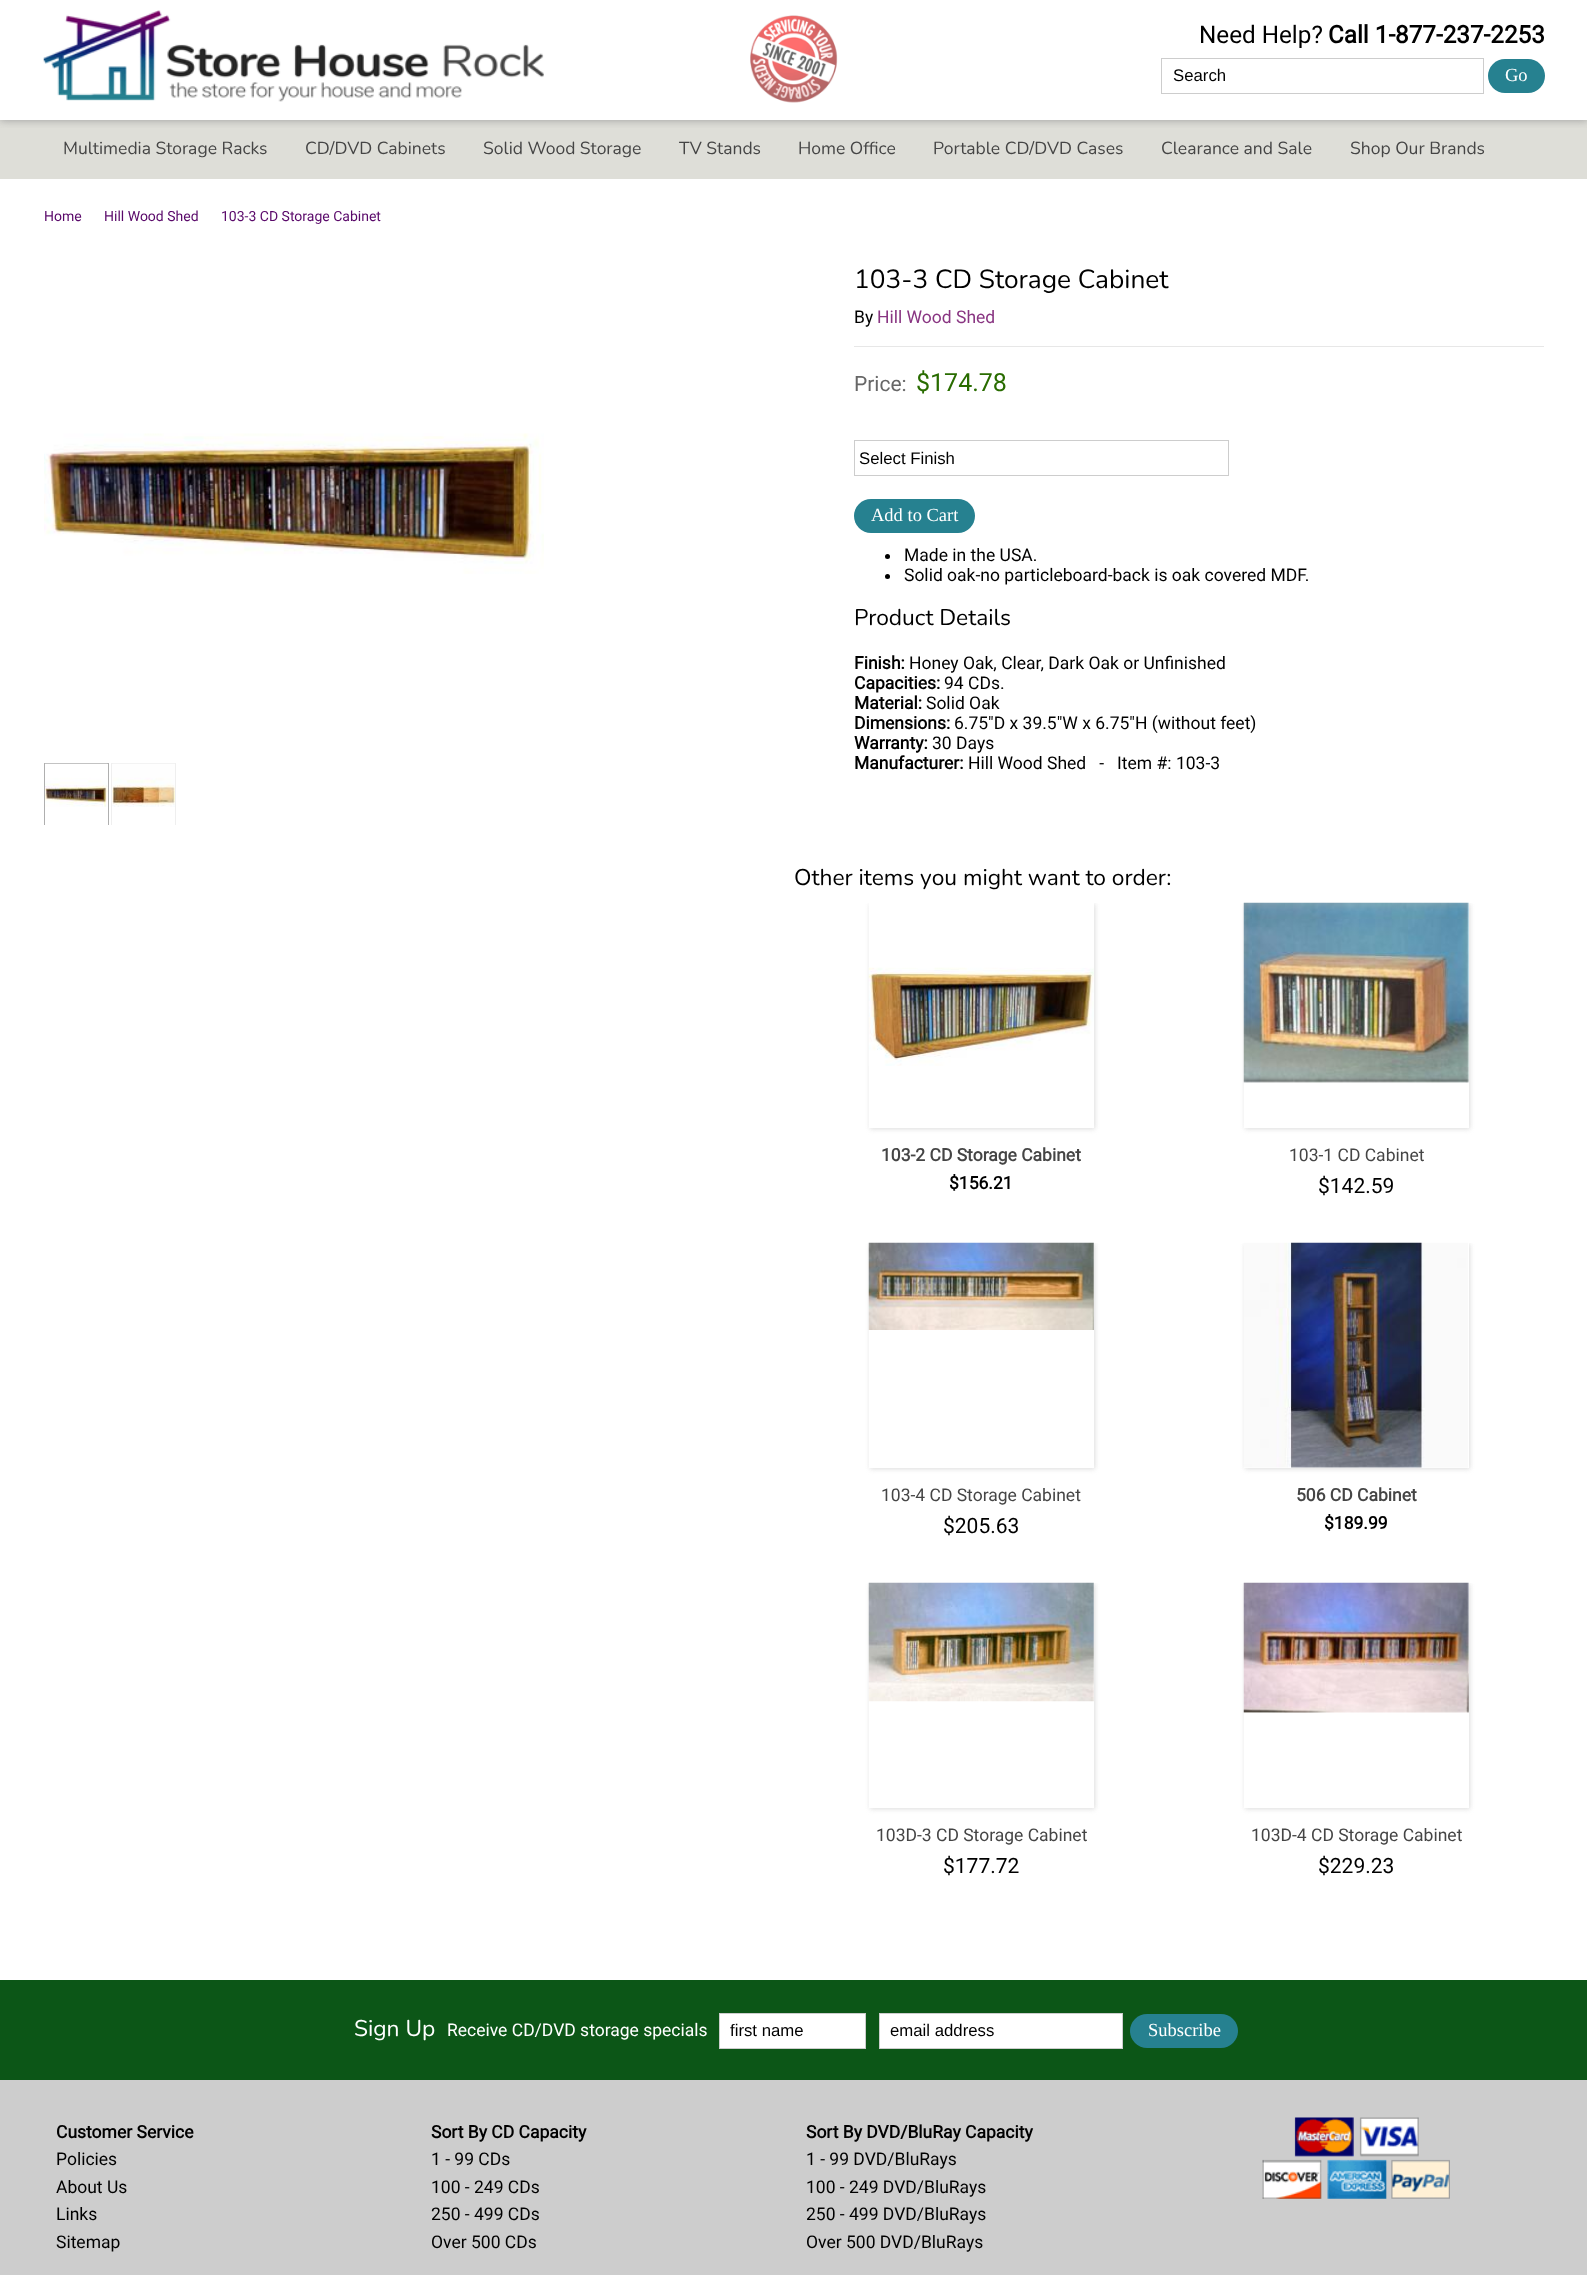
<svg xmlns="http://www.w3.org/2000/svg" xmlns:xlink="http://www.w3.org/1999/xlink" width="1587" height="2275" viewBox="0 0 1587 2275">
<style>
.cls-1{font:24.25px Roboto;fill:#000000}
.cls-2{font:bold 24.25px Roboto;fill:#000000}
.cls-3{font:16.75px Liberation Sans;fill:#000000}
.cls-4{font:18.5px Liberation Serif;fill:#ffffff}
.cls-5{font:17.5px Nunito;fill:#454545}
.cls-6{font:14px Roboto;fill:#590869}
.cls-7{font:26.25px Nunito;fill:#000000}
.cls-8{font:17.5px Roboto;fill:#000000}
.cls-9{font:17.5px Roboto;fill:#893582}
.cls-10{font:21px Roboto;fill:#676767}
.cls-11{font:25px Roboto;fill:#296c00}
.cls-12{font:22.75px Nunito;fill:#000000}
.cls-13{font:bold 17.5px Roboto;fill:#000000}
.cls-14{font:bold 17.5px Roboto;fill:#454545}
.cls-15{font:17.5px Roboto;fill:#454545}
.cls-16{font:21px Roboto;fill:#000000}
.cls-17{font:22.75px Nunito;fill:#ffffff}
.cls-18{font:17.5px Roboto;fill:#ffffff}
</style>
<defs>
<clipPath id="clip1"><rect x="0" y="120" width="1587" height="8"/></clipPath>
<clipPath id="clip2"><rect x="44" y="254" width="750" height="571"/></clipPath>
<clipPath id="clip3"><rect x="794" y="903" width="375" height="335"/></clipPath>
<clipPath id="clip4"><rect x="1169" y="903" width="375" height="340"/></clipPath>
<clipPath id="clip5"><rect x="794" y="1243" width="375" height="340"/></clipPath>
<clipPath id="clip6"><rect x="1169" y="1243" width="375" height="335"/></clipPath>
<clipPath id="clip7"><rect x="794" y="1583" width="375" height="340"/></clipPath>
<clipPath id="clip8"><rect x="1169" y="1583" width="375" height="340"/></clipPath>
</defs>
<rect width="100%" height="100%" fill="#ffffff"/>
<rect fill="#deded8" x="0" y="120" width="1587" height="59"/>
<g clip-path="url(#clip1)">
<rect fill="#9a9a9a" filter="blur(4px)" x="0" y="-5" width="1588" height="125"/>
</g>
<image xlink:href="image0.png" x="750" y="15" width="88" height="88"/>
<image xlink:href="image1.png" x="43" y="10" width="501" height="92"/>
<rect fill="none" stroke="#cdcdcd" x="1161.5" y="58.5" width="322" height="35"/>
<rect fill="#268190" x="1488" y="59" width="57" height="34" rx="17"/>
<image xlink:href="image2.png" x="44" y="433" width="500" height="141"/>
<g clip-path="url(#clip2)">
<rect fill="none" stroke="#afafaf" x="44.5" y="763.5" width="64" height="64"/>
</g>
<image xlink:href="image3.png" x="45" y="763" width="63" height="44"/>
<g clip-path="url(#clip2)">
<rect fill="none" stroke="#efefef" x="111.5" y="763.5" width="64" height="64"/>
</g>
<image xlink:href="image4.png" x="112" y="763" width="63" height="44"/>
<rect fill="#e7e7e7" x="854" y="346" width="690" height="1"/>
<rect fill="none" stroke="#cdcdcd" x="854.5" y="440.5" width="374" height="35"/>
<rect fill="#268190" x="854" y="499" width="121" height="34" rx="17"/>
<circle fill="#000000" cx="887.5" cy="556.5" r="2.5"/>
<circle fill="#000000" cx="887.5" cy="576.5" r="2.5"/>
<g clip-path="url(#clip3)">
<rect fill="#dcdcdc" filter="blur(2.5px)" x="870" y="904" width="225" height="225"/>
</g>
<rect fill="#ffffff" x="869" y="903" width="225" height="225"/>
<image xlink:href="image5.png" x="868" y="967" width="226" height="99"/>
<g clip-path="url(#clip4)">
<rect fill="#dcdcdc" filter="blur(2.5px)" x="1245" y="904" width="225" height="225"/>
</g>
<rect fill="#ffffff" x="1244" y="903" width="225" height="225"/>
<image xlink:href="image6.png" x="1243" y="902" width="226" height="181"/>
<g clip-path="url(#clip5)">
<rect fill="#dcdcdc" filter="blur(2.5px)" x="870" y="1244" width="225" height="225"/>
</g>
<rect fill="#ffffff" x="869" y="1243" width="225" height="225"/>
<image xlink:href="image7.png" x="868" y="1242" width="226" height="88"/>
<g clip-path="url(#clip6)">
<rect fill="#dcdcdc" filter="blur(2.5px)" x="1245" y="1244" width="225" height="225"/>
</g>
<rect fill="#ffffff" x="1244" y="1243" width="225" height="225"/>
<image xlink:href="image8.png" x="1244" y="1242" width="224" height="226"/>
<g clip-path="url(#clip7)">
<rect fill="#dcdcdc" filter="blur(2.5px)" x="870" y="1584" width="225" height="225"/>
</g>
<rect fill="#ffffff" x="869" y="1583" width="225" height="225"/>
<image xlink:href="image9.png" x="868" y="1582" width="226" height="120"/>
<g clip-path="url(#clip8)">
<rect fill="#dcdcdc" filter="blur(2.5px)" x="1245" y="1584" width="225" height="225"/>
</g>
<rect fill="#ffffff" x="1244" y="1583" width="225" height="225"/>
<image xlink:href="image10.png" x="1243" y="1582" width="226" height="131"/>
<rect fill="#cdcdcd" x="0" y="2080" width="1587" height="195"/>
<rect fill="#0c5617" x="0" y="1980" width="1587" height="100"/>
<rect fill="#ffffff" stroke="#cdcdcd" x="719.5" y="2013.5" width="146" height="35"/>
<rect fill="#ffffff" stroke="#cdcdcd" x="879.5" y="2013.5" width="243" height="35"/>
<rect fill="#268190" x="1130" y="2014" width="108" height="34" rx="17"/>
<image xlink:href="image11.png" x="1262" y="2117" width="188" height="82"/>
<text class="cls-1" x="1199" y="43">Need Help?</text>
<text class="cls-2" x="1328" y="43">Call 1-877-237-2253</text>
<text class="cls-3" x="1173" y="81">Search</text>
<text class="cls-4" x="1505" y="81">Go</text>
<text class="cls-5" x="63" y="154">Multimedia Storage Racks</text>
<text class="cls-5" x="305" y="154">CD/DVD Cabinets</text>
<text class="cls-5" x="483" y="154">Solid Wood Storage</text>
<text class="cls-5" x="679" y="154">TV Stands</text>
<text class="cls-5" x="798" y="154">Home Office</text>
<text class="cls-5" x="933" y="154">Portable CD/DVD Cases</text>
<text class="cls-5" x="1161" y="154">Clearance and Sale</text>
<text class="cls-5" x="1350" y="154">Shop Our Brands</text>
<text class="cls-6" x="44" y="221">Home</text>
<text class="cls-6" x="104" y="221">Hill Wood Shed</text>
<text class="cls-6" x="221" y="221">103-3 CD Storage Cabinet</text>
<text class="cls-7" x="854" y="288">103-3 CD Storage Cabinet</text>
<text class="cls-8" x="854" y="323">By</text>
<text class="cls-9" x="877" y="323">Hill Wood Shed</text>
<text class="cls-10" x="854" y="391">Price:</text>
<text class="cls-11" x="916" y="391">$174.78</text>
<text class="cls-3" x="859" y="464">Select Finish</text>
<text class="cls-4" x="871" y="521">Add to Cart</text>
<text class="cls-8"><tspan x="904" y="561">Made in the USA.</tspan><tspan x="904" y="581">Solid oak-no particleboard-back is oak covered MDF.</tspan></text>
<text class="cls-12" x="854" y="625">Product Details</text>
<text class="cls-13" x="854" y="669">Finish:</text>
<text class="cls-8" x="909" y="669">Honey Oak, Clear, Dark Oak or Unfinished</text>
<text class="cls-13" x="854" y="689">Capacities:</text>
<text class="cls-8" x="944" y="689">94 CDs.</text>
<text class="cls-13" x="854" y="709">Material:</text>
<text class="cls-8" x="926" y="709">Solid Oak</text>
<text class="cls-13" x="854" y="729">Dimensions:</text>
<text class="cls-8" x="954" y="729">6.75"D x 39.5"W x 6.75"H (without feet)</text>
<text class="cls-13" x="854" y="749">Warranty:</text>
<text class="cls-8" x="932" y="749">30 Days</text>
<text class="cls-13" x="854" y="769">Manufacturer:</text>
<text class="cls-8" xml:space="preserve" x="968" y="769">Hill Wood Shed   -   Item #: 103-3</text>
<text class="cls-12" x="794" y="885">Other items you might want to order:</text>
<text class="cls-14" x="881" y="1161">103-2 CD Storage Cabinet</text>
<text class="cls-13" x="949" y="1189">$156.21</text>
<text class="cls-15" x="1289" y="1161">103-1 CD Cabinet</text>
<text class="cls-16" x="1318" y="1193">$142.59</text>
<text class="cls-15" x="881" y="1501">103-4 CD Storage Cabinet</text>
<text class="cls-16" x="943" y="1533">$205.63</text>
<text class="cls-14" x="1296" y="1501">506 CD Cabinet</text>
<text class="cls-13" x="1324" y="1529">$189.99</text>
<text class="cls-15" x="876" y="1841">103D-3 CD Storage Cabinet</text>
<text class="cls-16" x="943" y="1873">$177.72</text>
<text class="cls-15" x="1251" y="1841">103D-4 CD Storage Cabinet</text>
<text class="cls-16" x="1318" y="1873">$229.23</text>
<text class="cls-17" x="354" y="2036">Sign Up</text>
<text class="cls-18" x="447" y="2036">Receive CD/DVD storage specials</text>
<text class="cls-3" x="730" y="2036">first name</text>
<text class="cls-3" x="890" y="2036">email address</text>
<text class="cls-4" x="1148" y="2036">Subscribe</text>
<text class="cls-13" x="56" y="2138">Customer Service</text>
<text class="cls-8"><tspan x="56" y="2165">Policies</tspan><tspan x="56" y="2193">About Us</tspan><tspan x="56" y="2220">Links</tspan><tspan x="56" y="2248">Sitemap</tspan></text>
<text class="cls-13" x="431" y="2138">Sort By CD Capacity</text>
<text class="cls-8"><tspan x="431" y="2165">1 - 99 CDs</tspan><tspan x="431" y="2193">100 - 249 CDs</tspan><tspan x="431" y="2220">250 - 499 CDs</tspan><tspan x="431" y="2248">Over 500 CDs</tspan></text>
<text class="cls-13" x="806" y="2138">Sort By DVD/BluRay Capacity</text>
<text class="cls-8"><tspan x="806" y="2165">1 - 99 DVD/BluRays</tspan><tspan x="806" y="2193">100 - 249 DVD/BluRays</tspan><tspan x="806" y="2220">250 - 499 DVD/BluRays</tspan><tspan x="806" y="2248">Over 500 DVD/BluRays</tspan></text>
</svg>
